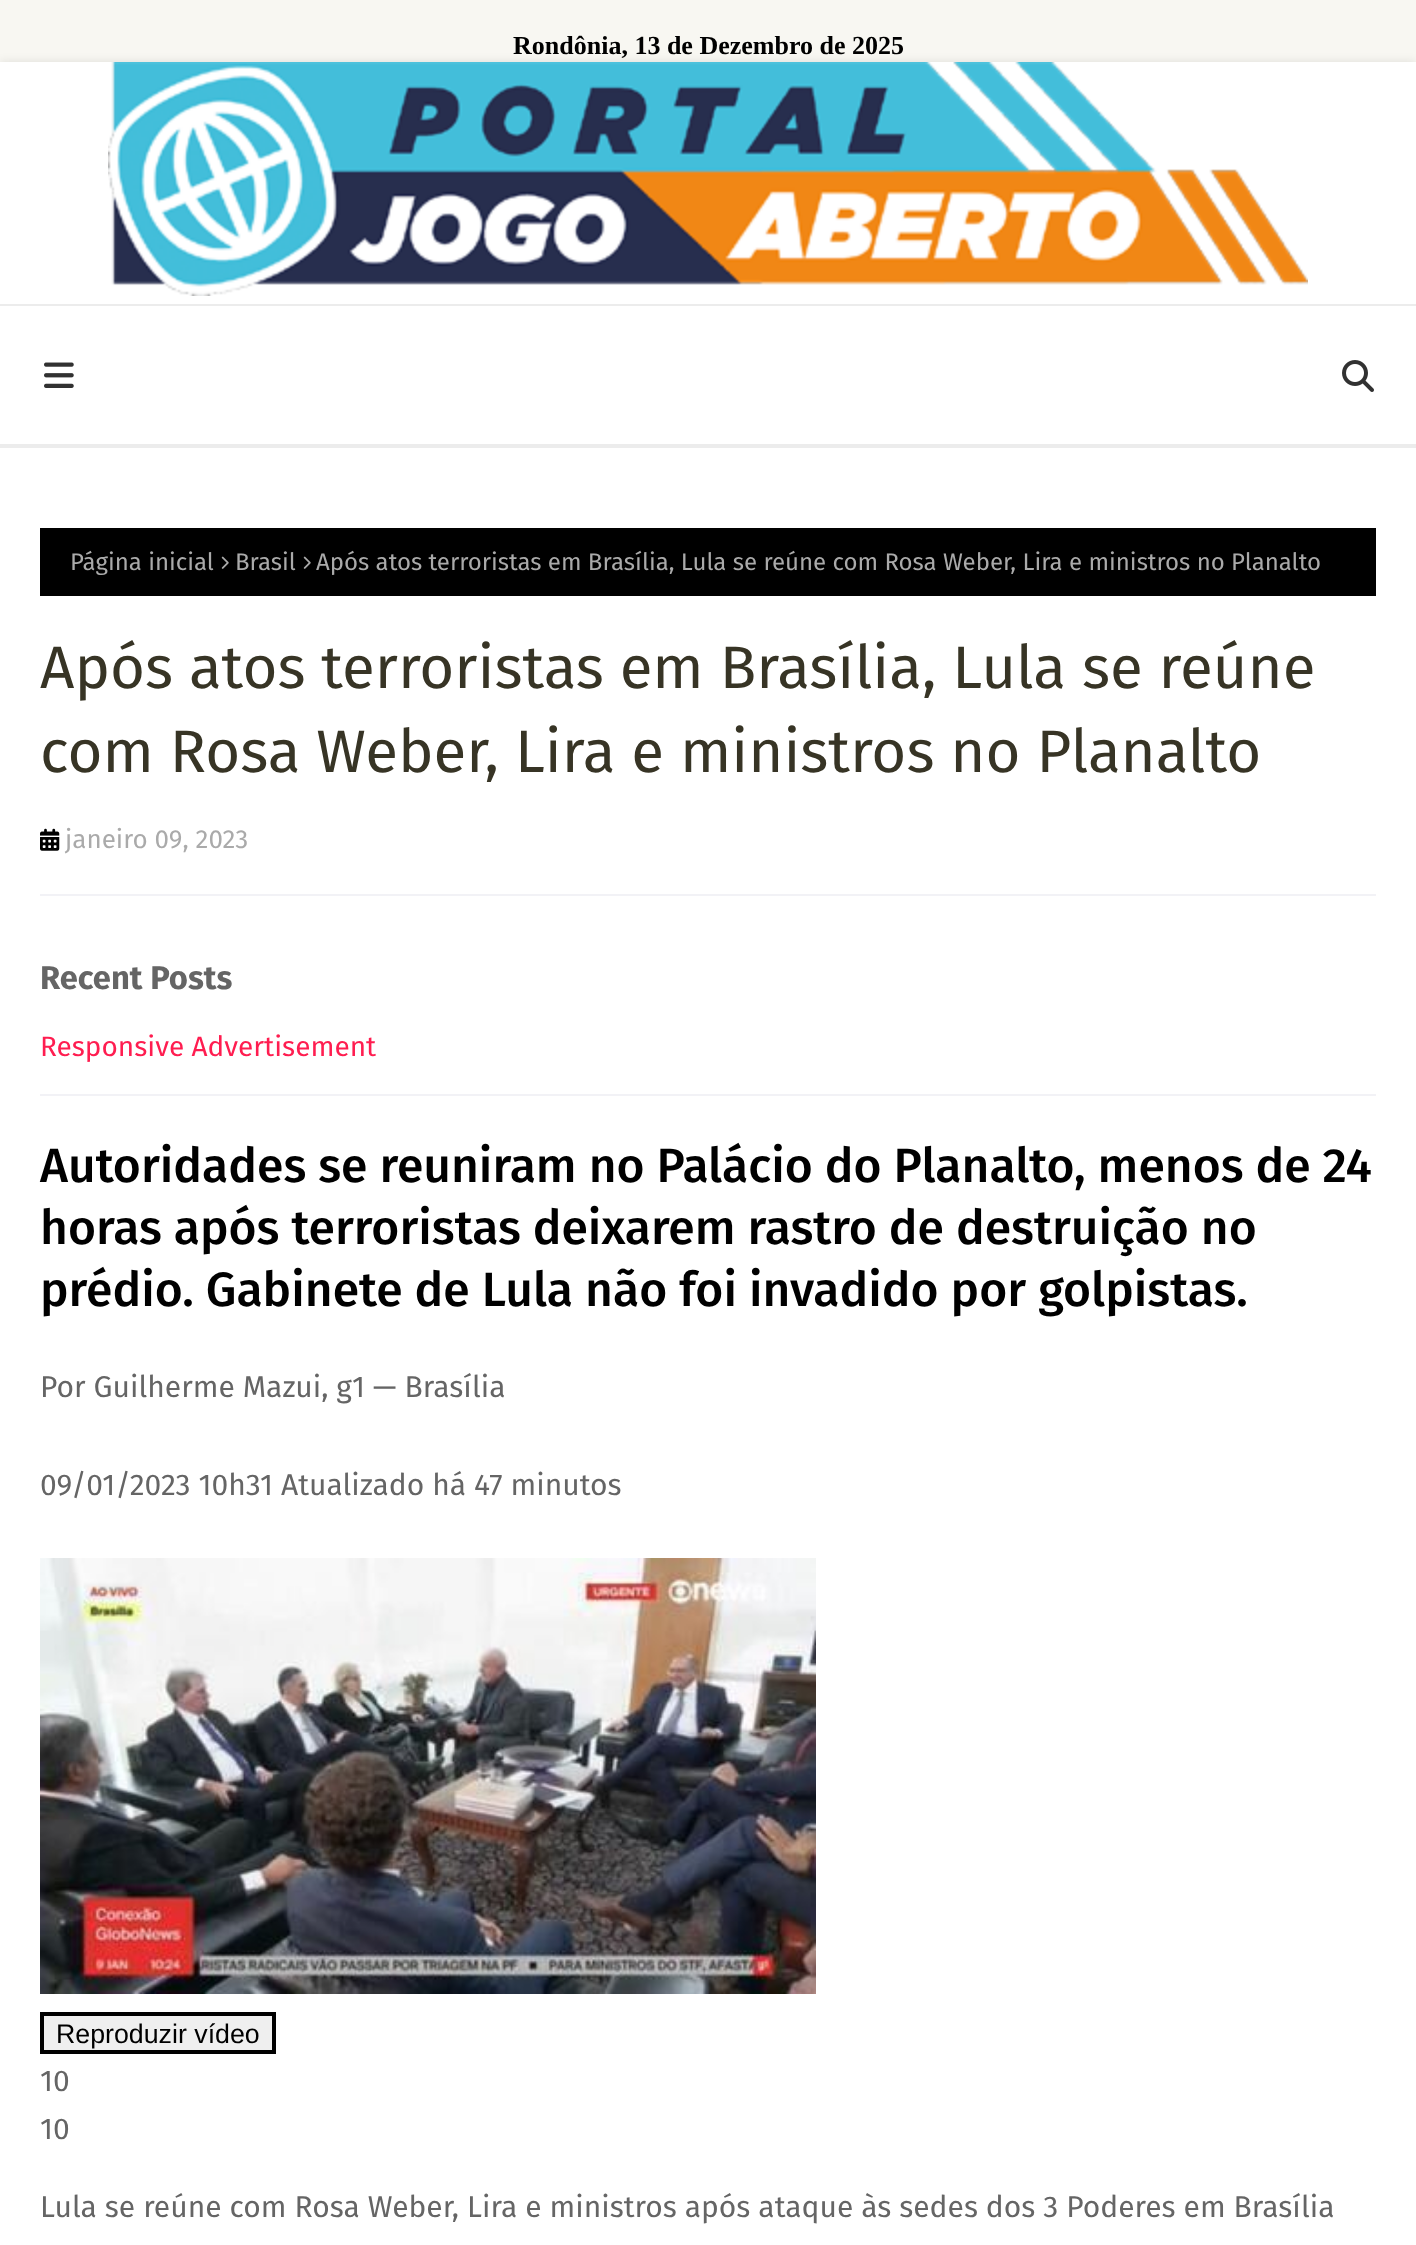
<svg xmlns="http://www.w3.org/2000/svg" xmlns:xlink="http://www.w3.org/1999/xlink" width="1416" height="2245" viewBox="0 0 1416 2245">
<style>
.cls-1{font:bold 26px Liberation Serif;fill:#000000}
.cls-2{font:24px Fira Sans;fill:#aaaaaa}
.cls-3{font:60px Fira Sans;fill:#373425}
.cls-4{font:26px Fira Sans;fill:#aaaaaa}
.cls-5{font:bold 32.75px Fira Sans;fill:#656565}
.cls-6{font:28px Fira Sans;fill:#ff1d50}
.cls-7{font:500 48px Fira Sans;fill:#000000}
.cls-8{font:30px Fira Sans;fill:#656565}
.cls-9{font:26.75px Liberation Sans;fill:#000000}
</style>
<rect width="100%" height="100%" fill="#f8f7f2"/>
<rect fill="#000000" fill-opacity="0.1" filter="blur(5px)" x="0" y="62" width="1416" height="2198"/>
<rect fill="#ffffff" x="0" y="62" width="1416" height="2183"/>
<image xlink:href="image0.png" x="108" y="62" width="1200" height="234"/>
<rect fill="#ececec" x="0" y="304" width="1416" height="2"/>
<image xlink:href="image1.png" x="44" y="362" width="30" height="26"/>
<image xlink:href="image2.png" x="1342" y="360" width="32" height="32"/>
<rect fill="#ececec" x="0" y="444" width="1416" height="4"/>
<rect fill="#000000" x="40" y="528" width="1336" height="68"/>
<image xlink:href="image3.png" x="221" y="556" width="8" height="13"/>
<image xlink:href="image3.png" x="303" y="556" width="8" height="13"/>
<image xlink:href="image4.png" x="40" y="828" width="20" height="23"/>
<rect fill="#f2f2f6" x="40" y="894" width="1336" height="2"/>
<rect fill="#f2f2f6" x="40" y="1094" width="1336" height="2"/>
<image xlink:href="image5.png" x="40" y="1558" width="776" height="436"/>
<rect fill="#efefef" stroke="#000000" stroke-width="4" x="42" y="2014" width="232" height="38"/>
<text class="cls-1" x="513" y="54">Rondônia, 13 de Dezembro de 2025</text>
<text class="cls-2" x="70" y="570">Página inicial</text>
<text class="cls-2" x="235" y="570">Brasil</text>
<text class="cls-2" x="316" y="570">Após atos terroristas em Brasília, Lula se reúne com Rosa Weber, Lira e ministros no Planalto</text>
<text class="cls-3"><tspan x="40" y="688">Após atos terroristas em Brasília, Lula se reúne</tspan><tspan x="40" y="772">com Rosa Weber, Lira e ministros no Planalto</tspan></text>
<text class="cls-4" x="65" y="848">janeiro 09, 2023</text>
<text class="cls-5" x="40" y="989">Recent Posts</text>
<text class="cls-6" x="40" y="1056">Responsive Advertisement</text>
<text class="cls-7"><tspan x="40" y="1182">Autoridades se reuniram no Palácio do Planalto, menos de 24</tspan><tspan x="40" y="1244">horas após terroristas deixarem rastro de destruição no</tspan><tspan x="40" y="1306">prédio. Gabinete de Lula não foi invadido por golpistas.</tspan></text>
<text class="cls-8" x="40" y="1397">Por Guilherme Mazui, g1 — Brasília</text>
<text class="cls-8" x="40" y="1495">09/01/2023 10h31 Atualizado há 47 minutos</text>
<text class="cls-9" x="56" y="2043">Reproduzir vídeo</text>
<text class="cls-8"><tspan x="40" y="2091">10</tspan><tspan x="40" y="2139">10</tspan></text>
<text class="cls-8" x="40" y="2217">Lula se reúne com Rosa Weber, Lira e ministros após ataque às sedes dos 3 Poderes em Brasília</text>
</svg>
